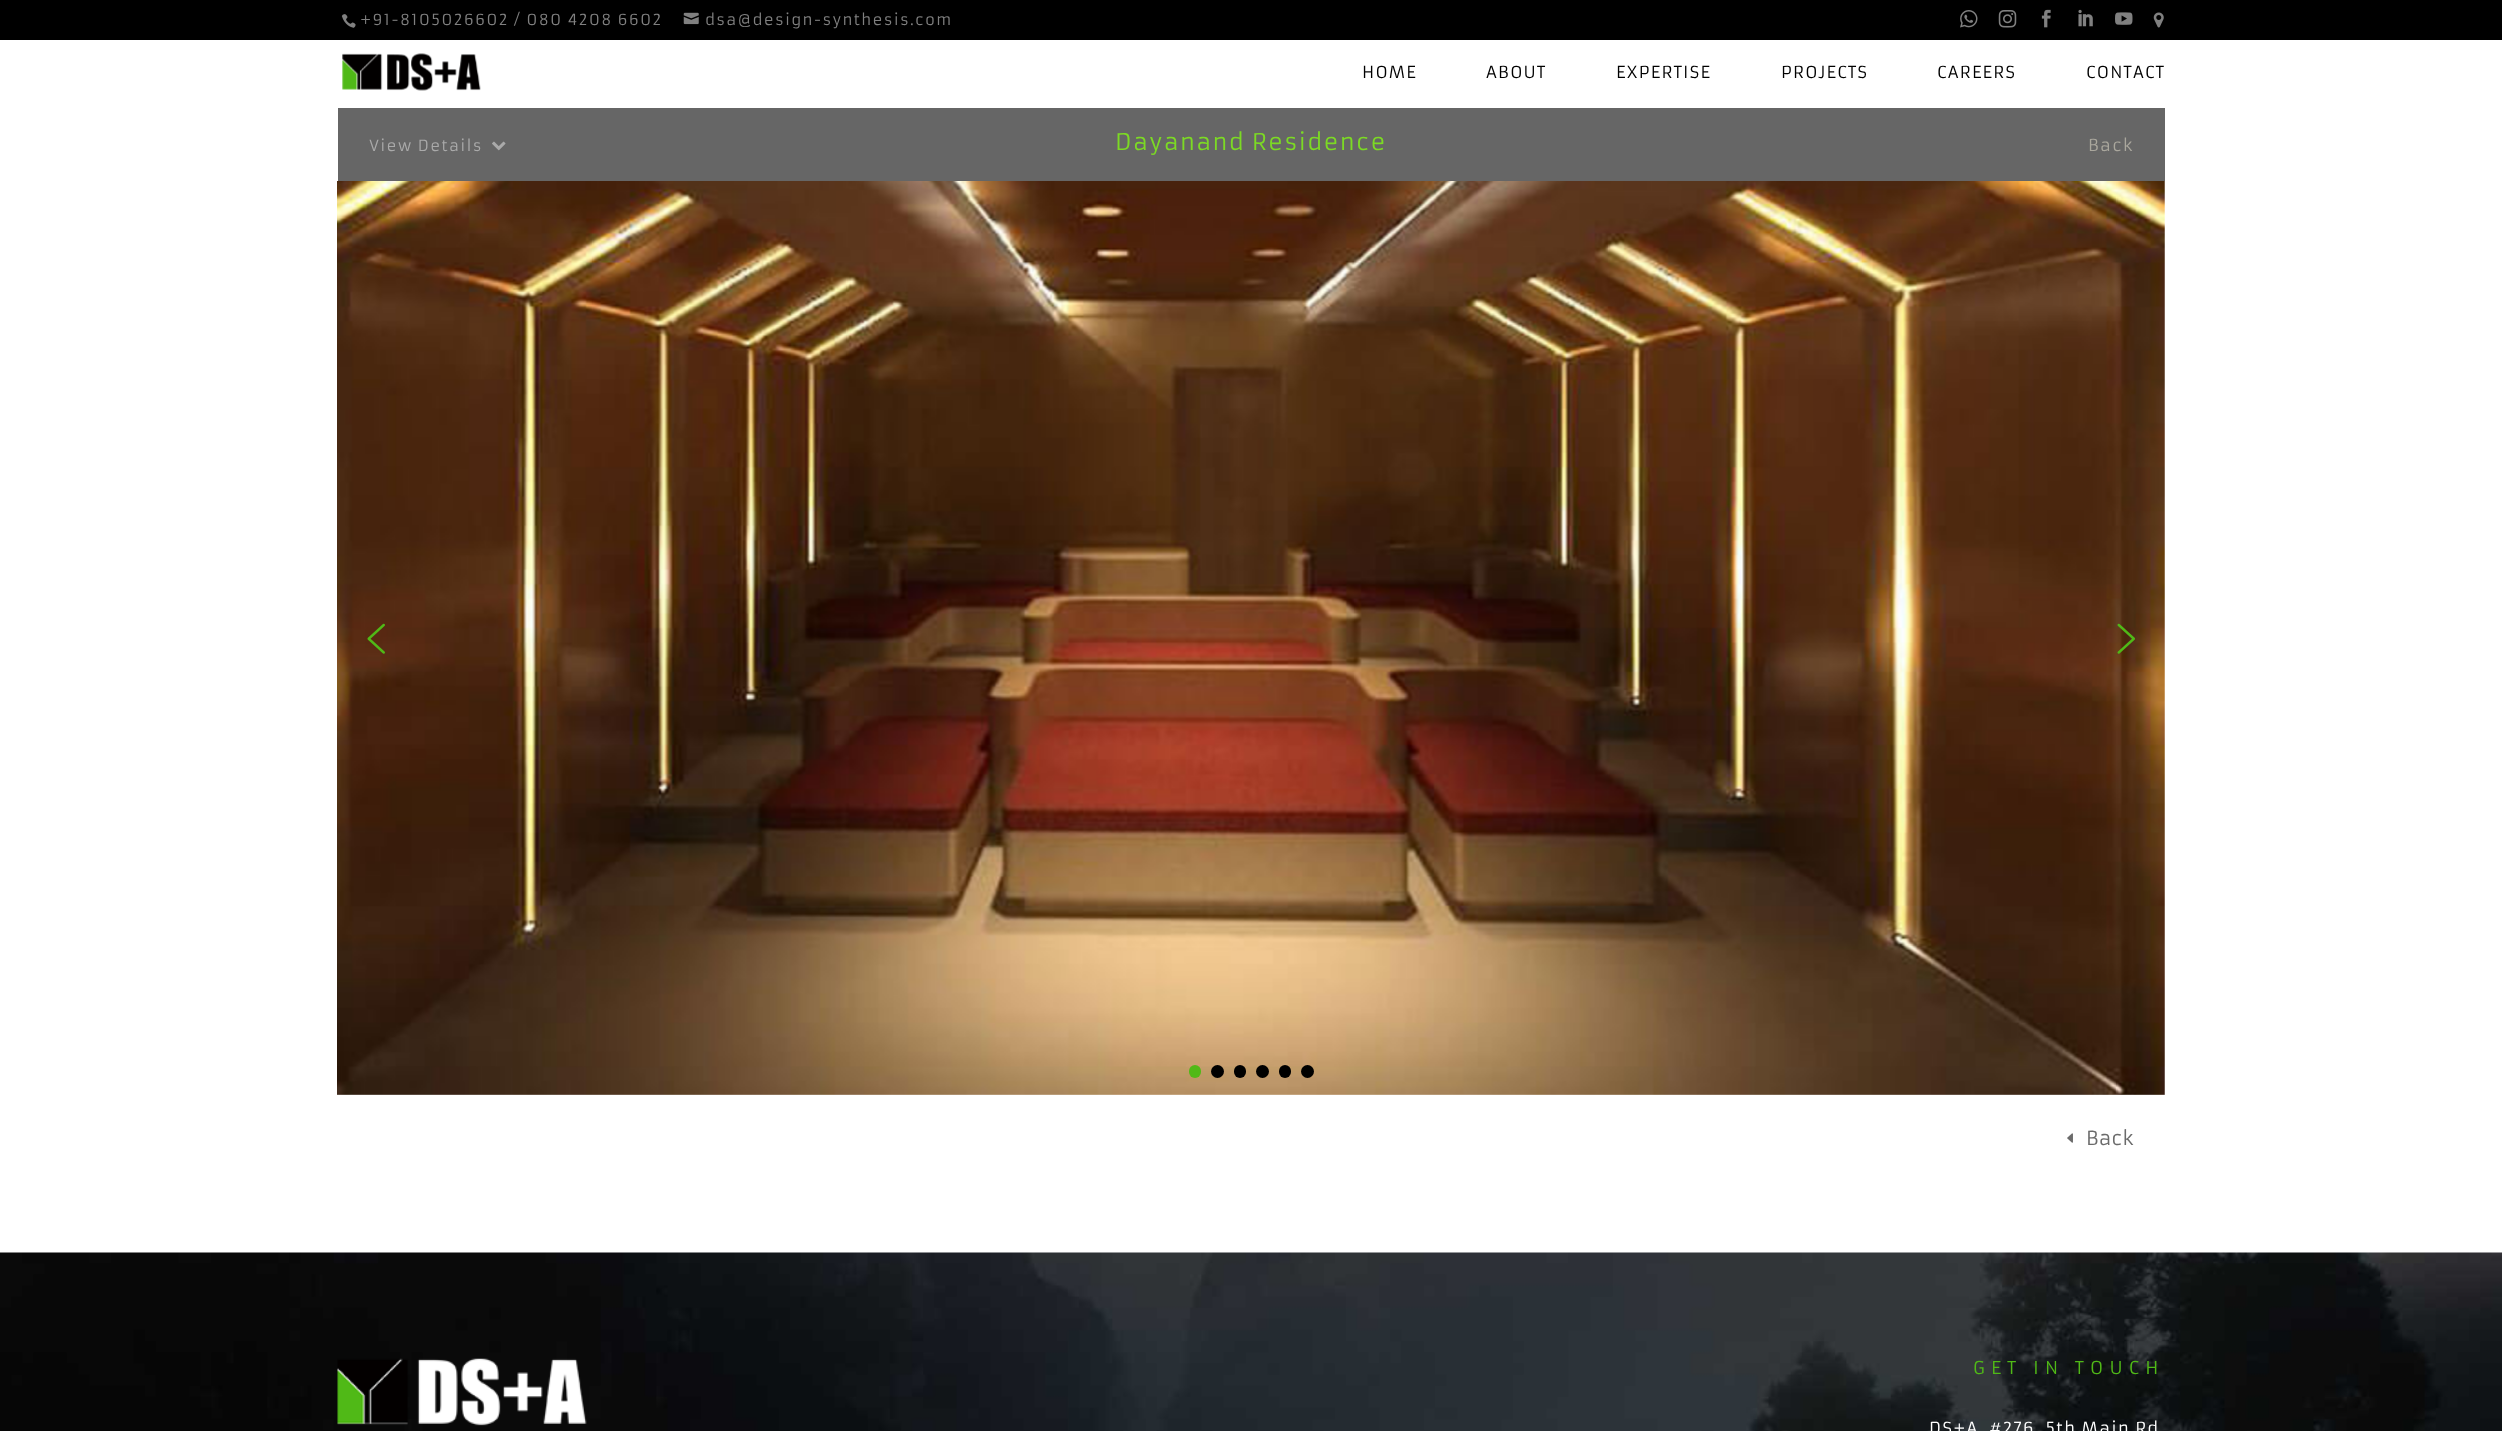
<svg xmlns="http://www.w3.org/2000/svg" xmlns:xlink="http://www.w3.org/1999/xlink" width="2502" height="1431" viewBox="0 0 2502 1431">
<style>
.cls-1{font:15px Armata;letter-spacing:1.25px;fill:#808080}
.cls-2{font:16.25px Armata;letter-spacing:1.25px;fill:#000000}
.cls-3{font:22.5px Armata;letter-spacing:1.25px;fill:#7cda24}
.cls-4{font:15px Armata;letter-spacing:1.25px;fill:#aaaaaa}
.cls-5{font:16.25px Armata;letter-spacing:1.25px;fill:#aaa79d}
.cls-6{font:19px Armata;fill:#6b6b6b}
.cls-7{font:17.5px Armata;letter-spacing:6.25px;fill:#50b917}
.cls-8{font:16.25px Armata;letter-spacing:1.25px;fill:#ffffff}
</style>
<rect width="100%" height="100%" fill="#ffffff"/>
<rect fill="#000000" x="0" y="0" width="2502" height="40"/>
<image xlink:href="image0.png" x="341" y="14" width="15" height="14"/>
<image xlink:href="image1.png" x="683" y="12" width="16" height="13"/>
<image xlink:href="image2.png" x="1960" y="10" width="18" height="18"/>
<image xlink:href="image3.png" x="1998" y="10" width="19" height="18"/>
<image xlink:href="image4.png" x="2041" y="9" width="10" height="19"/>
<image xlink:href="image5.png" x="2078" y="9" width="15" height="18"/>
<image xlink:href="image6.png" x="2115" y="12" width="18" height="13"/>
<image xlink:href="image7.png" x="2153" y="12" width="11" height="16"/>
<image xlink:href="image8.png" x="342" y="53" width="139" height="38"/>
<rect fill="#666666" x="338" y="108" width="1827" height="73"/>
<image xlink:href="image9.png" x="492" y="141" width="14" height="10"/>
<image xlink:href="image10.png" x="337" y="181" width="1828" height="914"/>
<image xlink:href="image11.png" x="367" y="623" width="18" height="31"/>
<image xlink:href="image12.png" x="2117" y="623" width="18" height="31"/>
<rect fill="#50b917" x="1189" y="1065" width="12" height="13" rx="6"/>
<circle fill="#000000" cx="1217.5" cy="1071.5" r="6.5"/>
<rect fill="#000000" x="1234" y="1065" width="12" height="13" rx="6"/>
<circle fill="#000000" cx="1262.5" cy="1071.5" r="6.5"/>
<rect fill="#000000" x="1279" y="1065" width="12" height="13" rx="6"/>
<circle fill="#000000" cx="1307.5" cy="1071.5" r="6.5"/>
<image xlink:href="image13.png" x="2067" y="1133" width="6" height="10"/>
<image xlink:href="image14.png" x="0" y="1252" width="2502" height="179"/>
<image xlink:href="image15.png" x="337" y="1358" width="250" height="68"/>
<text class="cls-1" x="360" y="25">+91-8105026602 / 080 4208 6602</text>
<text class="cls-1" x="705" y="25">dsa@design-synthesis.com</text>
<text class="cls-2" x="1362" y="78">HOME</text>
<text class="cls-2" x="1486" y="78">ABOUT</text>
<text class="cls-2" x="1616" y="78">EXPERTISE</text>
<text class="cls-2" x="1781" y="78">PROJECTS</text>
<text class="cls-2" x="1937" y="78">CAREERS</text>
<text class="cls-2" x="2086" y="78">CONTACT</text>
<text class="cls-3" x="1115" y="150">Dayanand Residence</text>
<text class="cls-4" x="369" y="151">View Details</text>
<text class="cls-5" x="2088" y="151">Back</text>
<text class="cls-6" x="2086" y="1145">Back</text>
<text class="cls-7" x="1973" y="1374">GET IN TOUCH</text>
<text class="cls-8" x="1929" y="1434">DS+A, #276, 5th Main Rd</text>
</svg>
